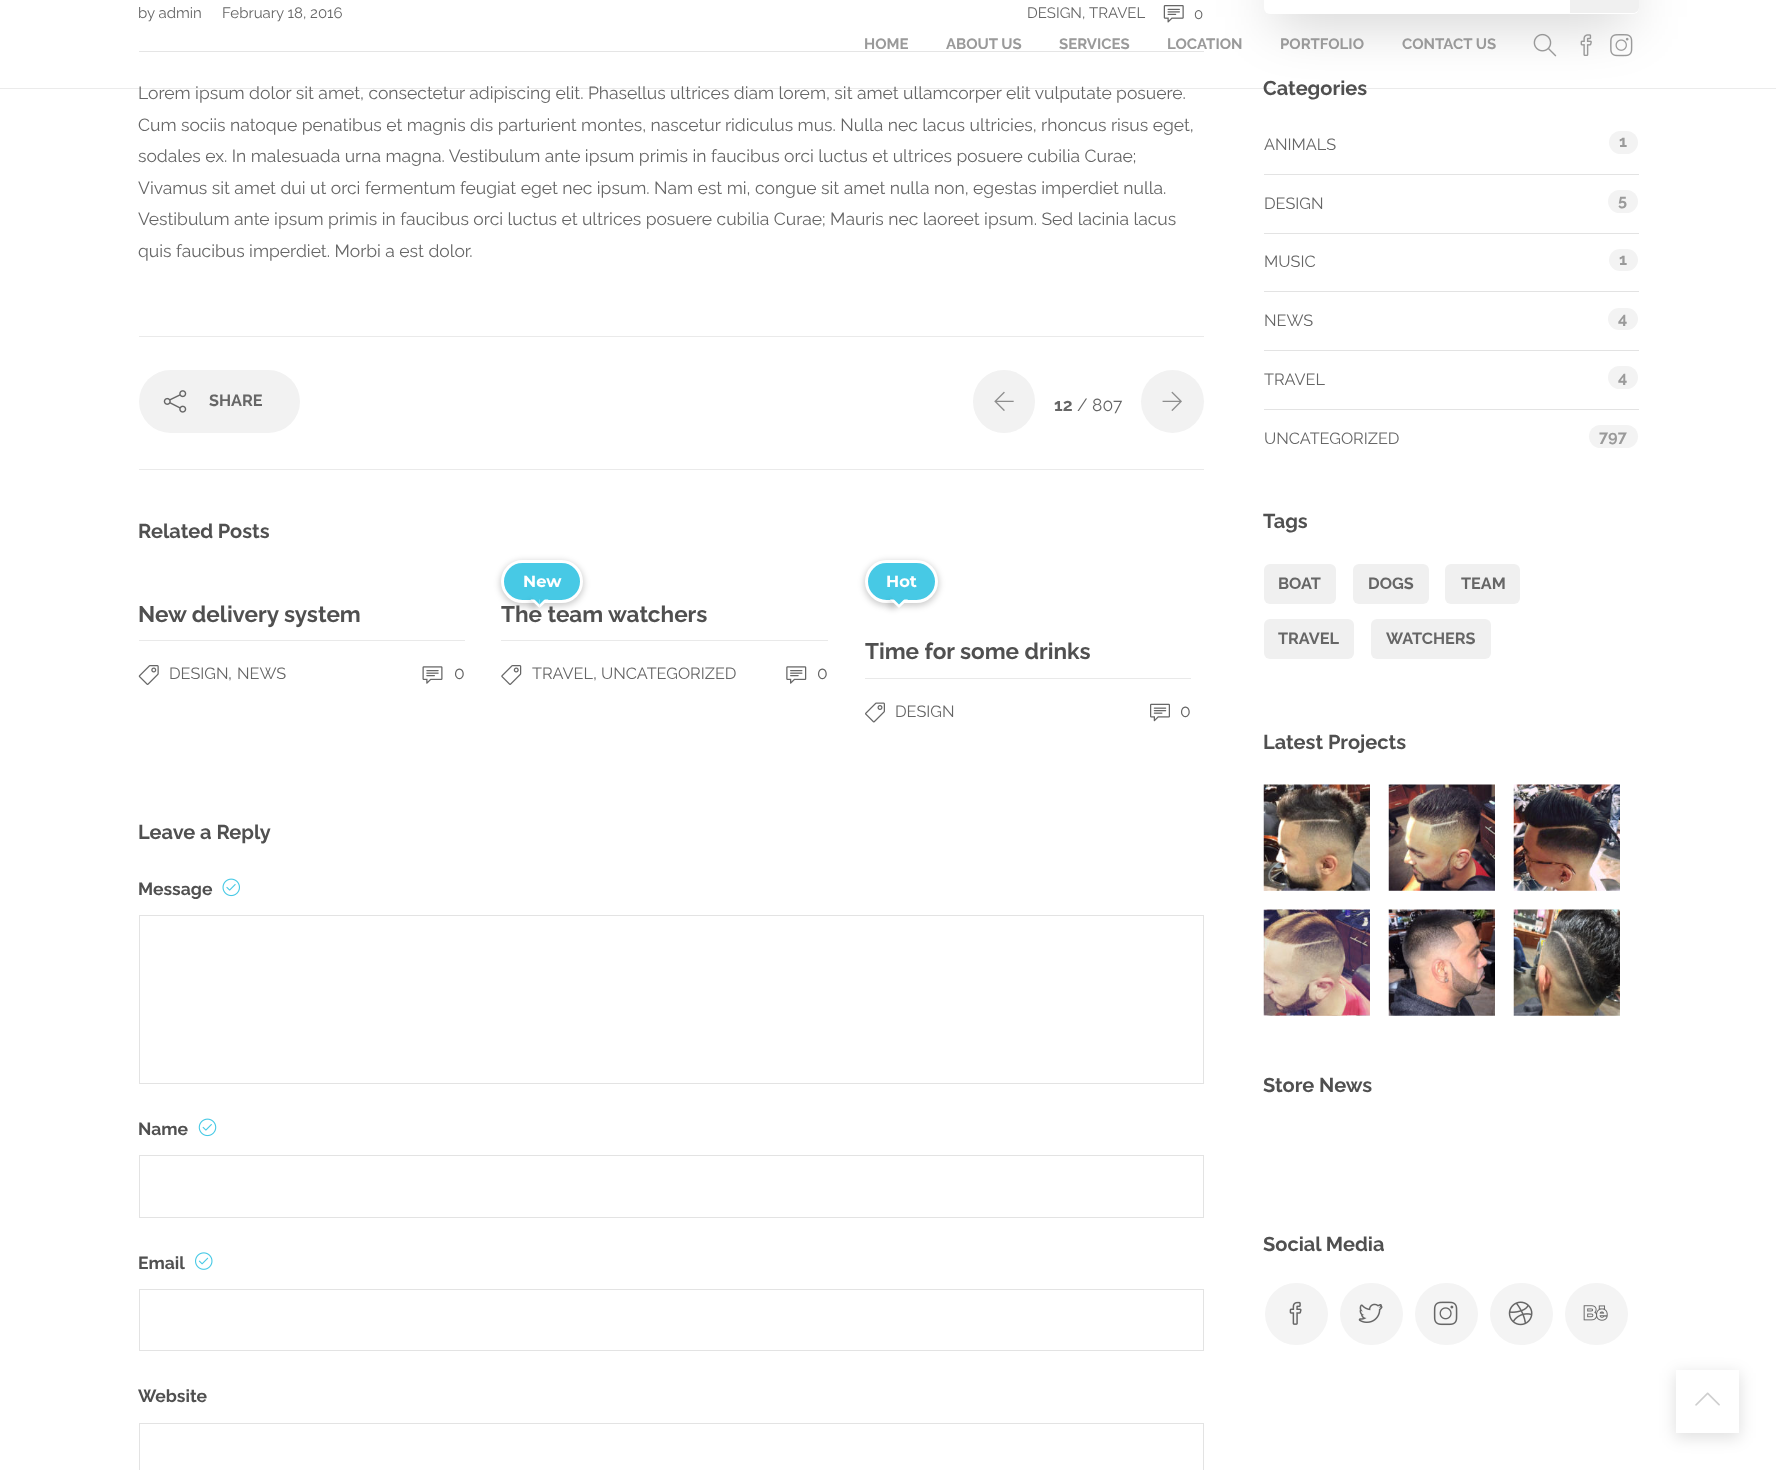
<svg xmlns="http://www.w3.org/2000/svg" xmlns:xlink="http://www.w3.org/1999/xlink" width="1776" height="1470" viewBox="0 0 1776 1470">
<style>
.cls-1{font:15px Raleway;fill:#666666}
.cls-2{font:17.5px Raleway;fill:#666666}
.cls-3{font:bold 16.25px Raleway;fill:#666666}
.cls-4{font:bold 17.5px Raleway;fill:#666666}
.cls-5{font:bold 20px Raleway;fill:#505050}
.cls-6{font:bold 22.5px Raleway;fill:#505050}
.cls-7{font:16.25px Raleway;fill:#666666}
.cls-8{font:bold 16.25px Montserrat;fill:#ffffff}
.cls-9{font:bold 17.5px Raleway;fill:#505050}
.cls-10{font:bold 16.25px Raleway;fill:#9a9a9a}
.cls-11{font:bold 15px Raleway;fill:#9a9a9a}
</style>
<rect width="100%" height="100%" fill="#ffffff"/>
<rect fill="#e5e5e5" x="139" y="51" width="1065" height="1"/>
<image xlink:href="image0.png" x="1163" y="5" width="21" height="18"/>
<rect fill="#eaeaea" x="139" y="336" width="1065" height="1"/>
<rect fill="#eaeaea" x="139" y="469" width="1065" height="1"/>
<rect fill="#f2f2f2" x="139" y="370" width="161" height="63" rx="31.5"/>
<image xlink:href="image1.png" x="163" y="390" width="24" height="23"/>
<rect fill="#f2f2f2" x="973" y="370" width="62" height="63" rx="31"/>
<image xlink:href="image2.png" x="994" y="391" width="20" height="20"/>
<circle fill="#f2f2f2" cx="1172.5" cy="401.5" r="31.5"/>
<image xlink:href="image3.png" x="1162" y="391" width="20" height="20"/>
<rect fill="#e9e9e9" x="139" y="640" width="326" height="1"/>
<image xlink:href="image4.png" x="138" y="665" width="21" height="20"/>
<image xlink:href="image5.png" x="422" y="666" width="21" height="18"/>
<rect fill="#000000" fill-opacity="0.2" filter="blur(3px)" x="500" y="561" width="84" height="45" rx="22.5"/>
<rect fill="#47c9e5" stroke="#ffffff" stroke-width="3" x="502.5" y="561.5" width="79" height="40" rx="20"/>
<rect fill="#000000" fill-opacity="0.15" filter="blur(3px)" x="530" y="601" width="8" height="8"/>
<rect fill="#e9e9e9" x="501" y="640" width="327" height="1"/>
<image xlink:href="image6.png" x="501" y="665" width="21" height="20"/>
<image xlink:href="image7.png" x="786" y="666" width="21" height="18"/>
<rect fill="#000000" fill-opacity="0.2" filter="blur(3px)" x="864" y="561" width="75" height="45" rx="22.5"/>
<rect fill="#47c9e5" stroke="#ffffff" stroke-width="3" x="866.5" y="561.5" width="70" height="40" rx="20"/>
<rect fill="#000000" fill-opacity="0.15" filter="blur(3px)" x="889" y="601" width="7" height="8"/>
<path fill="#ffffff" d="M908 599.5L899 608V599.5ZM899 608L890 599.5H899Z"/>
<path fill="#47c9e5" d="M908 595.5L899 604.5V595.5ZM899 604.5L890 595.5H899Z"/>
<rect fill="#e9e9e9" x="865" y="678" width="326" height="1"/>
<image xlink:href="image8.png" x="865" y="702" width="20" height="21"/>
<image xlink:href="image9.png" x="1150" y="703" width="20" height="19"/>
<image xlink:href="image10.png" x="222" y="878" width="18" height="19"/>
<rect fill="none" stroke="#e3e3e3" x="139.5" y="915.5" width="1064" height="168"/>
<image xlink:href="image11.png" x="198" y="1118" width="19" height="19"/>
<rect fill="none" stroke="#e3e3e3" x="139.5" y="1155.5" width="1064" height="62"/>
<image xlink:href="image12.png" x="195" y="1252" width="18" height="18"/>
<rect fill="none" stroke="#e3e3e3" x="139.5" y="1289.5" width="1064" height="61"/>
<rect fill="none" stroke="#e3e3e3" x="139.5" y="1423.5" width="1064" height="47"/>
<rect fill="#000000" fill-opacity="0.2" filter="blur(28px)" x="1275" y="-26" width="353" height="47"/>
<rect fill="#ffffff" x="1264" y="-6" width="375" height="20" rx="6"/>
<path fill="#f0f0f0" d="M1570-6H1633C1636.5-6 1639-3.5 1639 0V7C1639 10.5 1636.5 13 1633 13H1570Z"/>
<rect fill="#e3e3e3" x="1264" y="174" width="375" height="1"/>
<rect fill="#f3f3f3" x="1609" y="131" width="29" height="23" rx="11.5"/>
<rect fill="#e3e3e3" x="1264" y="233" width="375" height="1"/>
<rect fill="#f3f3f3" x="1608" y="190" width="30" height="23" rx="11.5"/>
<rect fill="#e3e3e3" x="1264" y="291" width="375" height="1"/>
<rect fill="#f3f3f3" x="1609" y="249" width="29" height="22" rx="11"/>
<rect fill="#e3e3e3" x="1264" y="350" width="375" height="1"/>
<rect fill="#f3f3f3" x="1608" y="308" width="30" height="22" rx="11"/>
<rect fill="#e3e3e3" x="1264" y="409" width="375" height="1"/>
<rect fill="#f3f3f3" x="1608" y="366" width="30" height="23" rx="11.5"/>
<rect fill="#f3f3f3" x="1589" y="425" width="49" height="23" rx="11.5"/>
<rect fill="#f0f0f0" x="1264" y="564" width="72" height="40" rx="6"/>
<rect fill="#f0f0f0" x="1353" y="564" width="76" height="40" rx="6"/>
<rect fill="#f0f0f0" x="1445" y="564" width="75" height="40" rx="6"/>
<rect fill="#f0f0f0" x="1264" y="619" width="90" height="40" rx="6"/>
<rect fill="#f0f0f0" x="1371" y="619" width="120" height="40" rx="6"/>
<image xlink:href="image13.png" x="1263" y="784" width="107" height="107"/>
<image xlink:href="image14.png" x="1388" y="784" width="107" height="107"/>
<image xlink:href="image15.png" x="1513" y="784" width="107" height="107"/>
<image xlink:href="image16.png" x="1263" y="909" width="107" height="107"/>
<image xlink:href="image17.png" x="1388" y="909" width="107" height="107"/>
<image xlink:href="image18.png" x="1513" y="909" width="107" height="107"/>
<rect fill="#f4f4f4" x="1265" y="1283" width="63" height="62" rx="31"/>
<image xlink:href="image19.png" x="1289" y="1301" width="13" height="24"/>
<rect fill="#f4f4f4" x="1340" y="1283" width="63" height="62" rx="31"/>
<image xlink:href="image20.png" x="1358" y="1303" width="25" height="20"/>
<rect fill="#f4f4f4" x="1415" y="1283" width="63" height="62" rx="31"/>
<image xlink:href="image21.png" x="1433" y="1301" width="25" height="25"/>
<rect fill="#f4f4f4" x="1490" y="1283" width="63" height="62" rx="31"/>
<image xlink:href="image22.png" x="1508" y="1301" width="25" height="25"/>
<rect fill="#f4f4f4" x="1565" y="1283" width="63" height="62" rx="31"/>
<image xlink:href="image23.png" x="1583" y="1305" width="25" height="16"/>
<rect fill="#000000" fill-opacity="0.08" x="0" y="88" width="1776" height="1"/>
<image xlink:href="image24.png" x="1533" y="33" width="24" height="24"/>
<image xlink:href="image25.png" x="1580" y="34" width="12" height="22"/>
<image xlink:href="image26.png" x="1610" y="34" width="23" height="23"/>
<rect fill="#000000" fill-opacity="0.12" filter="blur(8px)" x="1675" y="1373" width="65" height="65"/>
<rect fill="#ffffff" x="1676" y="1370" width="63" height="63"/>
<image xlink:href="image27.png" x="1695" y="1392" width="25" height="14"/>
<text class="cls-1" x="138" y="18">by admin</text>
<text class="cls-1" x="222" y="18">February 18, 2016</text>
<text class="cls-1" x="1027" y="18">DESIGN,</text>
<text class="cls-1" x="1089" y="18">TRAVEL</text>
<text class="cls-1" x="1194" y="19">0</text>
<text class="cls-2"><tspan x="138" y="99">Lorem ipsum dolor sit amet, consectetur adipiscing elit. Phasellus ultrices diam lorem, sit amet ullamcorper elit vulputate posuere.</tspan><tspan x="138" y="131">Cum sociis natoque penatibus et magnis dis parturient montes, nascetur ridiculus mus. Nulla nec lacus ultricies, rhoncus risus eget,</tspan><tspan x="138" y="162">sodales ex. In malesuada urna magna. Vestibulum ante ipsum primis in faucibus orci luctus et ultrices posuere cubilia Curae;</tspan><tspan x="138" y="194">Vivamus sit amet dui ut orci fermentum feugiat eget nec ipsum. Nam est mi, congue sit amet nulla non, egestas imperdiet nulla.</tspan><tspan x="138" y="225">Vestibulum ante ipsum primis in faucibus orci luctus et ultrices posuere cubilia Curae; Mauris nec laoreet ipsum. Sed lacinia lacus</tspan><tspan x="138" y="257">quis faucibus imperdiet. Morbi a est dolor.</tspan></text>
<text class="cls-3" x="209" y="406">SHARE</text>
<text class="cls-4" x="1054" y="411">12</text>
<text class="cls-2" x="1077" y="411">/ 807</text>
<text class="cls-5" x="138" y="538">Related Posts</text>
<text class="cls-6" x="138" y="622">New delivery system</text>
<text class="cls-7" x="169" y="679">DESIGN</text>
<text class="cls-2" x="228" y="679">,</text>
<text class="cls-7" x="237" y="679">NEWS</text>
<text class="cls-2" x="454" y="679">0</text>
<text class="cls-8" x="523" y="587">New</text>
<text class="cls-6" x="501" y="622">The team watchers</text>
<path fill="#ffffff" d="M548.5 599.5L539.5 608V599.5Z"/>
<path fill="#ffffff" d="M539.5 608L530.5 599.5H539.5Z"/>
<path fill="#47c9e5" d="M548.5 595.5L539.5 604.5V595.5Z"/>
<path fill="#47c9e5" d="M539.5 604.5L530.5 595.5H539.5Z"/>
<text class="cls-7" x="532" y="679">TRAVEL</text>
<text class="cls-2" x="593" y="679">,</text>
<text class="cls-7" x="601" y="679">UNCATEGORIZED</text>
<text class="cls-2" x="817" y="679">0</text>
<text class="cls-8" x="886" y="587">Hot</text>
<text class="cls-6" x="865" y="659">Time for some drinks</text>
<text class="cls-7" x="895" y="717">DESIGN</text>
<text class="cls-2" x="1180" y="717">0</text>
<text class="cls-5" x="138" y="839">Leave a Reply</text>
<text class="cls-9" x="138" y="895">Message</text>
<text class="cls-9" x="138" y="1135">Name</text>
<text class="cls-9" x="138" y="1269">Email</text>
<text class="cls-9" x="138" y="1402">Website</text>
<text class="cls-5" x="1263" y="95">Categories</text>
<text class="cls-7" x="1264" y="150">ANIMALS</text>
<text class="cls-10" x="1619" y="147">1</text>
<text class="cls-7" x="1264" y="209">DESIGN</text>
<text class="cls-10" x="1618" y="206">5</text>
<text class="cls-7" x="1264" y="267">MUSIC</text>
<text class="cls-10" x="1619" y="265">1</text>
<text class="cls-7" x="1264" y="326">NEWS</text>
<text class="cls-10" x="1618" y="324">4</text>
<text class="cls-7" x="1264" y="385">TRAVEL</text>
<text class="cls-10" x="1618" y="383">4</text>
<text class="cls-7" x="1264" y="444">UNCATEGORIZED</text>
<text class="cls-10" x="1599" y="442">797</text>
<text class="cls-5" x="1263" y="528">Tags</text>
<text class="cls-3" x="1278" y="589">BOAT</text>
<text class="cls-3" x="1368" y="589">DOGS</text>
<text class="cls-3" x="1461" y="589">TEAM</text>
<text class="cls-3" x="1278" y="644">TRAVEL</text>
<text class="cls-3" x="1386" y="644">WATCHERS</text>
<text class="cls-5" x="1263" y="749">Latest Projects</text>
<text class="cls-5" x="1263" y="1092">Store News</text>
<text class="cls-5" x="1263" y="1251">Social Media</text>
<text class="cls-11" x="864" y="49">HOME</text>
<text class="cls-11" x="946" y="49">ABOUT US</text>
<text class="cls-11" x="1059" y="49">SERVICES</text>
<text class="cls-11" x="1167" y="49">LOCATION</text>
<text class="cls-11" x="1280" y="49">PORTFOLIO</text>
<text class="cls-11" x="1402" y="49">CONTACT US</text>
</svg>
